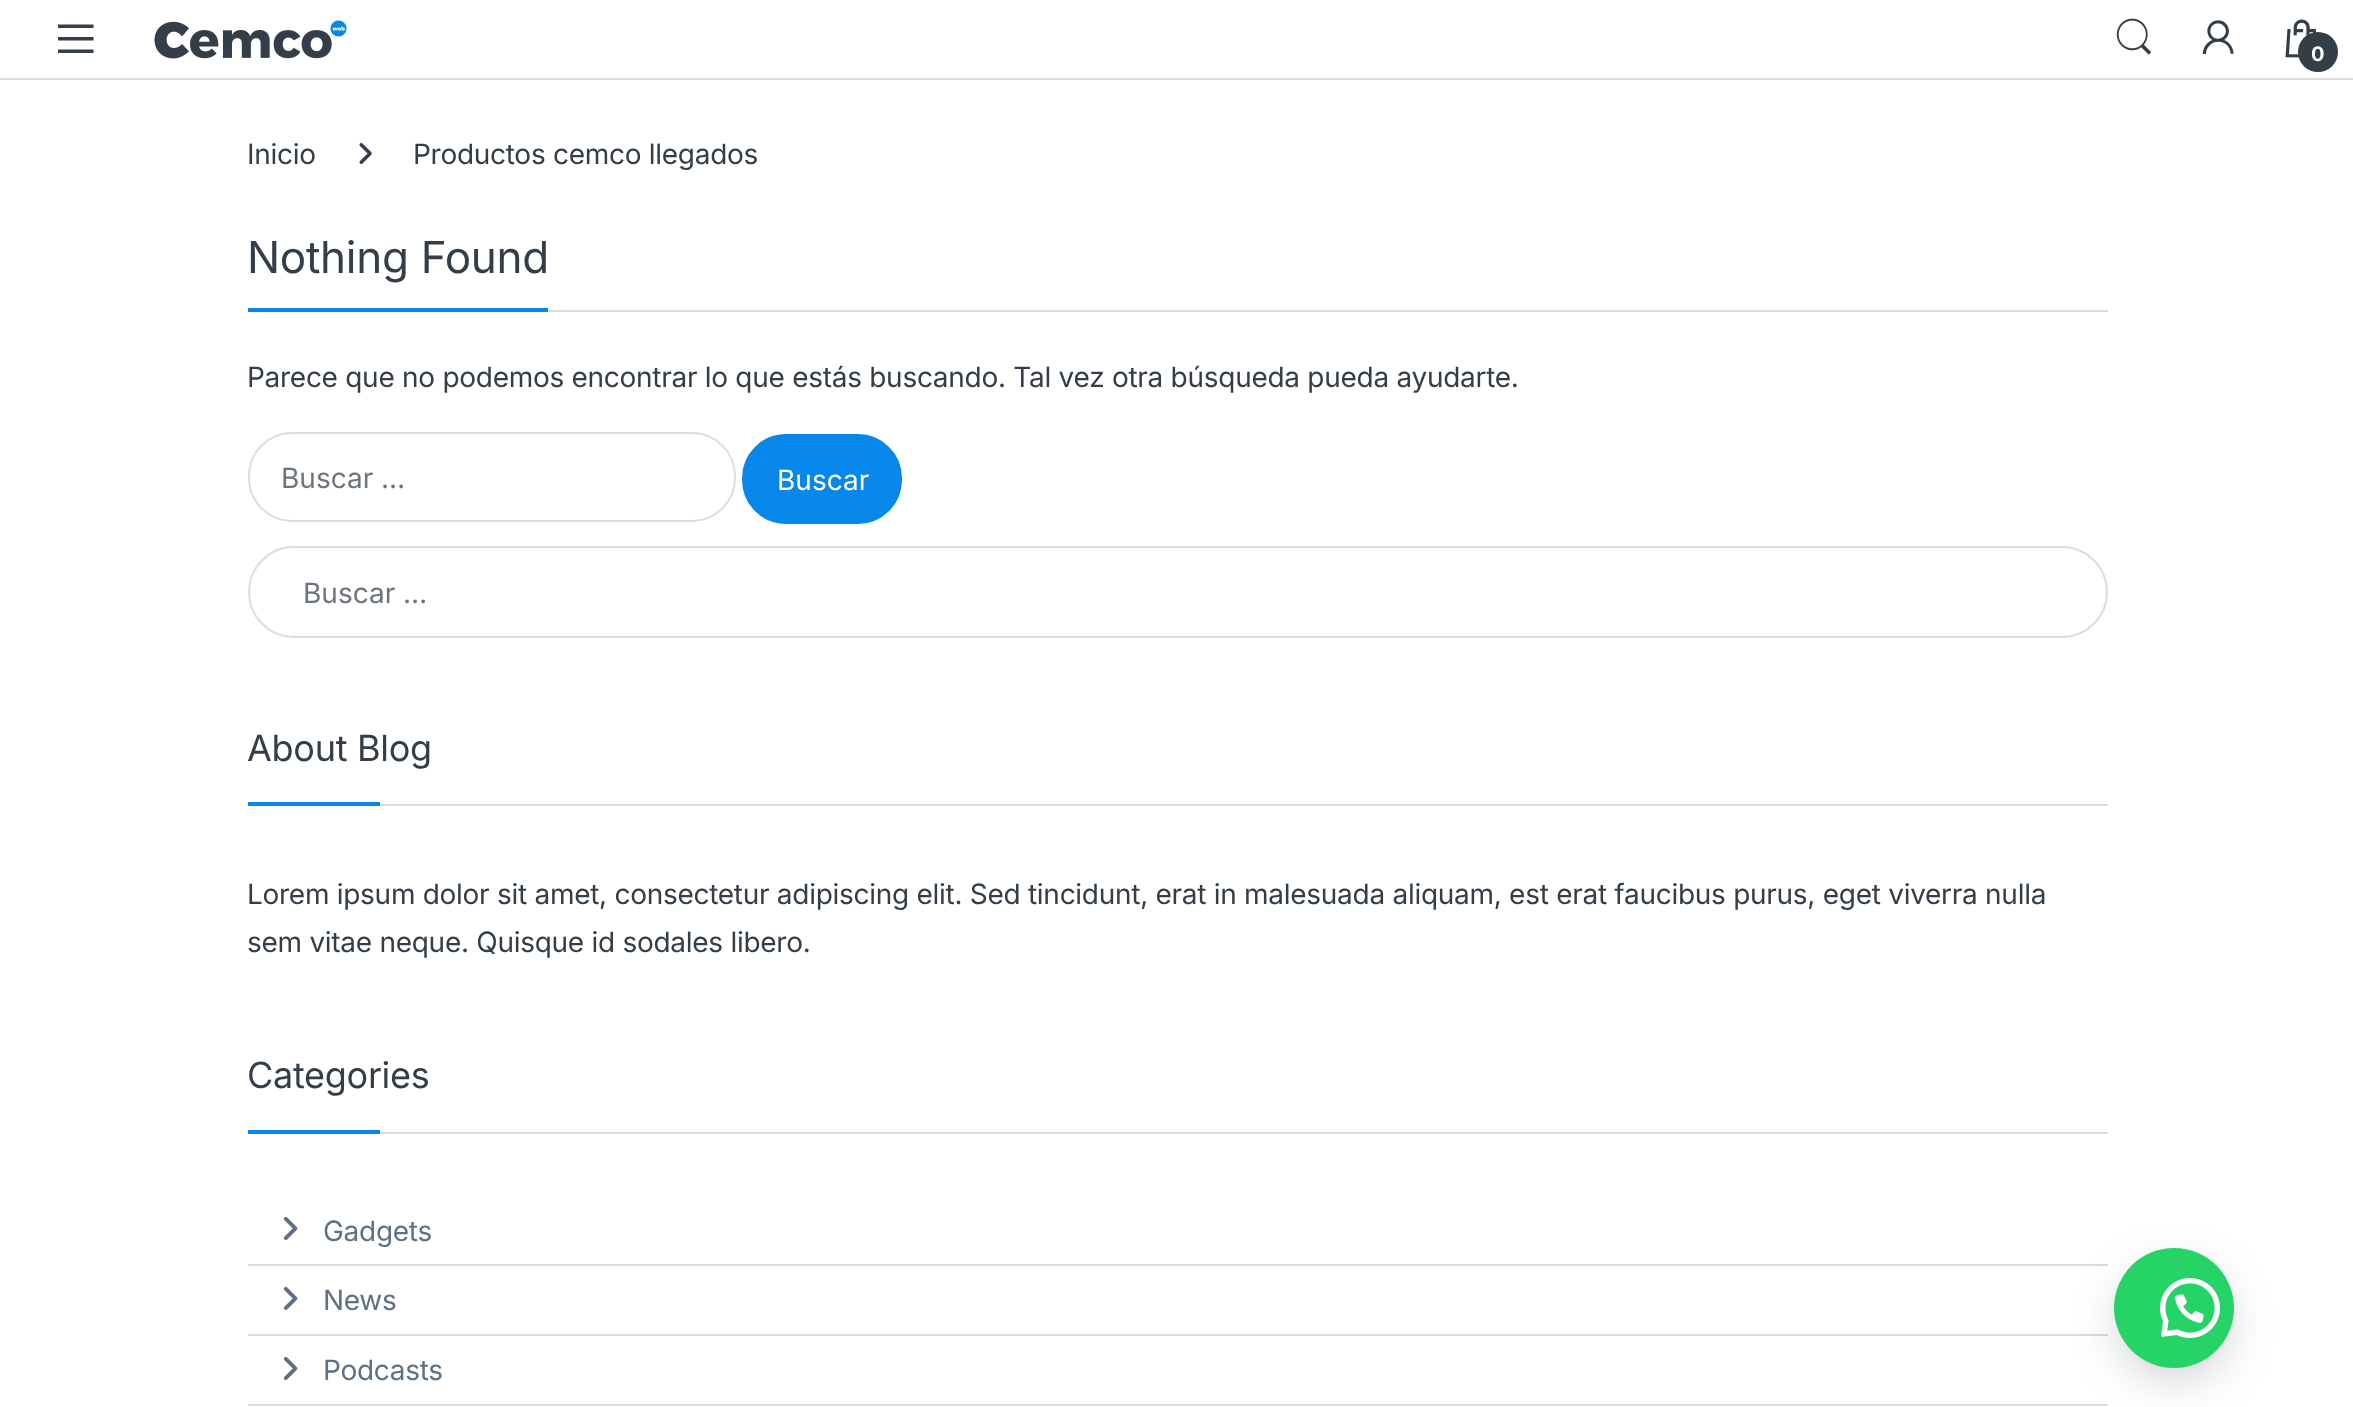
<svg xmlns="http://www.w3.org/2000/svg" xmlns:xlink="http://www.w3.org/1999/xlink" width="2353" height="1407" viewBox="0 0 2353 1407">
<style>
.cls-1{font:bold 20px Inter;letter-spacing:-0.28px;fill:#ffffff}
.cls-2{font:28px Inter;letter-spacing:-0.28px;fill:#333e48}
.cls-3{font:44px Inter;letter-spacing:-0.28px;fill:#333e48}
.cls-4{font:28px Inter;fill:#6c757d}
.cls-5{font:28px Inter;fill:#ffffff}
.cls-6{font:36px Inter;letter-spacing:-0.28px;fill:#333e48}
.cls-7{font:28px Inter;letter-spacing:-0.28px;fill:#5d7184}
</style>
<rect width="100%" height="100%" fill="#ffffff"/>
<rect fill="#dddddd" x="0" y="78" width="2353" height="2"/>
<path fill="#333e48" d="M58 53V49.5H93.5V53ZM58 37H93.5V40.5H58ZM58 24.5H93.5V28H58Z"/>
<image xlink:href="image0.png" x="154" y="20" width="193" height="39"/>
<image xlink:href="image1.png" x="2116" y="18" width="36" height="37"/>
<image xlink:href="image2.png" x="2202" y="20" width="32" height="35"/>
<image xlink:href="image3.png" x="2285" y="19" width="32" height="39"/>
<circle fill="#333e48" cx="2318" cy="52" r="20"/>
<image xlink:href="image4.png" x="359" y="143" width="13" height="21"/>
<rect fill="#dddddd" x="548" y="310" width="1560" height="2"/>
<rect fill="#0787ea" x="248" y="308" width="300" height="4"/>
<rect fill="none" stroke="#dddddd" stroke-width="2" x="249" y="433" width="486" height="88" rx="43"/>
<rect fill="#0787ea" stroke="#0787ea" stroke-width="2" x="743" y="435" width="158" height="88" rx="43"/>
<rect fill="none" stroke="#dddddd" stroke-width="2" x="249" y="547" width="1858" height="90" rx="45"/>
<rect fill="#dddddd" x="380" y="804" width="1728" height="2"/>
<rect fill="#0787ea" x="248" y="802" width="132" height="4"/>
<rect fill="#dddddd" x="380" y="1132" width="1728" height="2"/>
<rect fill="#0787ea" x="248" y="1130" width="132" height="4"/>
<rect fill="#dddddd" x="248" y="1264" width="1860" height="2"/>
<image xlink:href="image5.png" x="283" y="1216" width="15" height="24"/>
<rect fill="#dddddd" x="248" y="1334" width="1860" height="2"/>
<image xlink:href="image5.png" x="283" y="1286" width="15" height="24"/>
<rect fill="#dddddd" x="248" y="1404" width="1860" height="2"/>
<image xlink:href="image5.png" x="283" y="1356" width="15" height="24"/>
<rect fill="#2d3e4f" fill-opacity="0.3" filter="blur(25px)" x="2124" y="1274" width="100" height="100" rx="50"/>
<circle fill="#25d366" cx="2174" cy="1308" r="60"/>
<image xlink:href="image6.png" x="2160" y="1278" width="60" height="60"/>
<text class="cls-1" x="2311" y="61">0</text>
<text class="cls-2" x="247" y="164">Inicio</text>
<text class="cls-2" x="413" y="164">Productos cemco llegados</text>
<text class="cls-3" x="247" y="273">Nothing Found</text>
<text class="cls-2" x="247" y="387">Parece que no podemos encontrar lo que estás buscando. Tal vez otra búsqueda pueda ayudarte.</text>
<text class="cls-4" x="281" y="488">Buscar …</text>
<text class="cls-5" x="777" y="490">Buscar</text>
<text class="cls-4" x="303" y="603">Buscar …</text>
<text class="cls-6" x="247" y="761">About Blog</text>
<text class="cls-2"><tspan x="247" y="904">Lorem ipsum dolor sit amet, consectetur adipiscing elit. Sed tincidunt, erat in malesuada aliquam, est erat faucibus purus, eget viverra nulla</tspan><tspan x="247" y="952">sem vitae neque. Quisque id sodales libero.</tspan></text>
<text class="cls-6" x="247" y="1088">Categories</text>
<text class="cls-7" x="323" y="1241">Gadgets</text>
<text class="cls-7" x="323" y="1310">News</text>
<text class="cls-7" x="323" y="1380">Podcasts</text>
</svg>
